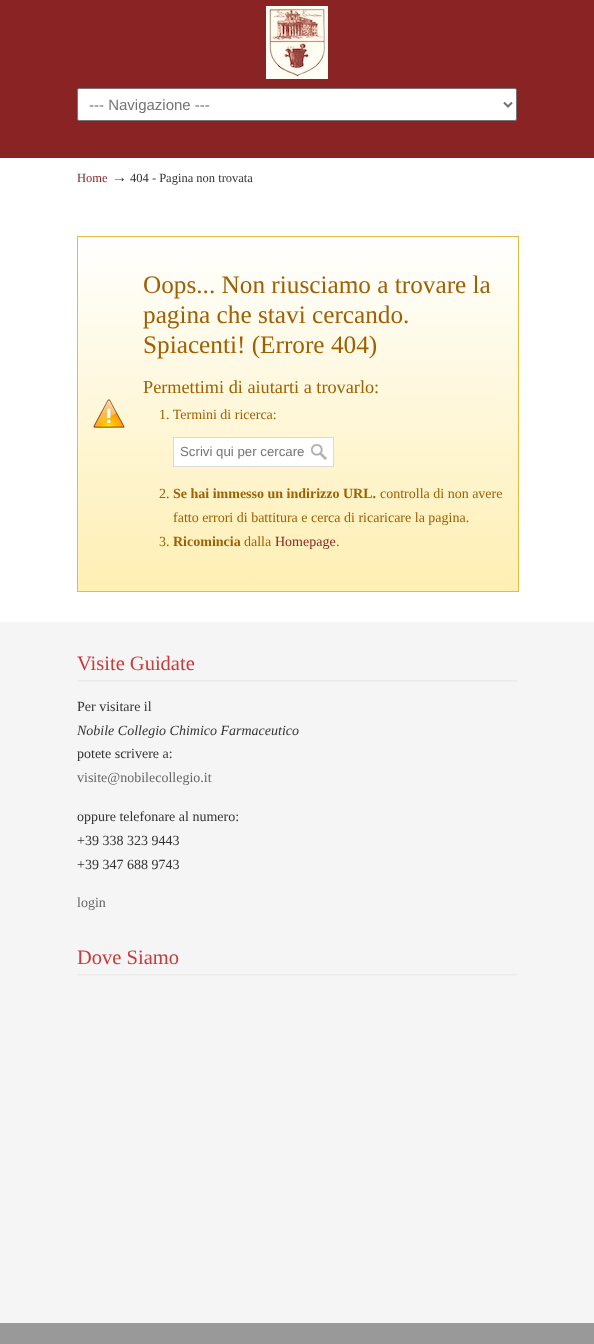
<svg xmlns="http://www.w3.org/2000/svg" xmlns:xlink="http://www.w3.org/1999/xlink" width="594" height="1344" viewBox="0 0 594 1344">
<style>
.cls-1{font:15px Liberation Sans;fill:#757575}
.cls-2{font:12.5px Liberation Serif;fill:#8a2323}
.cls-3{font:15px Liberation Serif;fill:#333333}
.cls-4{font:12.5px Liberation Serif;fill:#333333}
.cls-5{font:25.25px Liberation Serif;fill:#9f6000}
.cls-6{font:18.25px Liberation Serif;fill:#9f6000}
.cls-7{font:14px Liberation Serif;fill:#9f6000}
.cls-8{font:13.25px Liberation Sans;fill:#757575}
.cls-9{font:bold 14px Liberation Serif;fill:#9f6000}
.cls-10{font:14px Liberation Serif;fill:#8a2323}
.cls-11{font:20.5px Liberation Serif;fill:#c93a3a}
.cls-12{font:14px Liberation Serif;fill:#333333}
.cls-13{font:italic 14px Liberation Serif;fill:#333333}
.cls-14{font:14px Liberation Serif;fill:#666666}
</style>
<defs>
<linearGradient id="g1" gradientUnits="userSpaceOnUse" x1="298" y1="237" x2="298" y2="591"><stop offset="0" stop-color="#ffffff"/><stop offset="1" stop-color="#feefb3"/></linearGradient>
</defs>
<rect width="100%" height="100%" fill="#999999"/>
<rect fill="#8a2323" x="0" y="0" width="594" height="158"/>
<image xlink:href="image0.png" x="266" y="6" width="62" height="73"/>
<rect fill="#ffffff" stroke="#767676" x="77.5" y="88.5" width="439" height="32" rx="1.5"/>
<path fill="none" stroke="#717171" stroke-width="2" d="M504 102.5L508 106.5L512 102.5"/>
<rect fill="#ffffff" x="0" y="158" width="594" height="464"/>
<rect fill="url(#g1)" x="78" y="249" width="440" height="342"/>
<rect fill="none" stroke="#e5bc3b" x="77.5" y="236.5" width="441" height="355"/>
<image xlink:href="image1.png" x="93" y="399" width="32" height="29"/>
<rect fill="#ffffff" stroke="#ddd9d9" x="173.5" y="437.5" width="160" height="29"/>
<image xlink:href="image2.png" x="311" y="444" width="16" height="16"/>
<rect fill="#f5f5f5" x="0" y="622" width="594" height="701"/>
<image xlink:href="image3.png" x="77" y="680" width="440" height="2"/>
<image xlink:href="image4.png" x="77" y="974" width="440" height="2"/>
<text class="cls-1" x="89" y="110">--- Navigazione ---</text>
<text class="cls-2" x="77" y="182">Home</text>
<text class="cls-3" x="112" y="182">→</text>
<text class="cls-4" x="130" y="182">404 - Pagina non trovata</text>
<text class="cls-5"><tspan x="143" y="293">Oops... Non riusciamo a trovare la</tspan><tspan x="143" y="323">pagina che stavi cercando.</tspan><tspan x="143" y="353">Spiacenti! (Errore 404)</tspan></text>
<text class="cls-6" x="143" y="393">Permettimi di aiutarti a trovarlo:</text>
<text class="cls-7" x="159" y="419">1. Termini di ricerca:</text>
<text class="cls-8" x="180" y="456">Scrivi qui per cercare</text>
<text class="cls-7" x="159" y="498">2.</text>
<text class="cls-9" x="173" y="498">Se hai immesso un indirizzo URL.</text>
<text class="cls-7" x="380" y="498">controlla di non avere</text>
<text class="cls-7" x="173" y="522">fatto errori di battitura e cerca di ricaricare la pagina.</text>
<text class="cls-7" x="159" y="546">3.</text>
<text class="cls-9" x="173" y="546">Ricomincia</text>
<text class="cls-7" x="244" y="546">dalla</text>
<text class="cls-10" x="275" y="546">Homepage</text>
<text class="cls-7" x="336" y="546">.</text>
<text class="cls-11" x="77" y="670">Visite Guidate</text>
<text class="cls-12" x="77" y="711">Per visitare il</text>
<text class="cls-13" x="77" y="735">Nobile Collegio Chimico Farmaceutico</text>
<text class="cls-12" x="77" y="758">potete scrivere a:</text>
<text class="cls-14" x="77" y="782">visite@nobilecollegio.it</text>
<text class="cls-12"><tspan x="77" y="821">oppure telefonare al numero:</tspan><tspan x="77" y="845">+39 338 323 9443</tspan><tspan x="77" y="869">+39 347 688 9743</tspan></text>
<text class="cls-14" x="77" y="907">login</text>
<text class="cls-11" x="77" y="964">Dove Siamo</text>
</svg>
